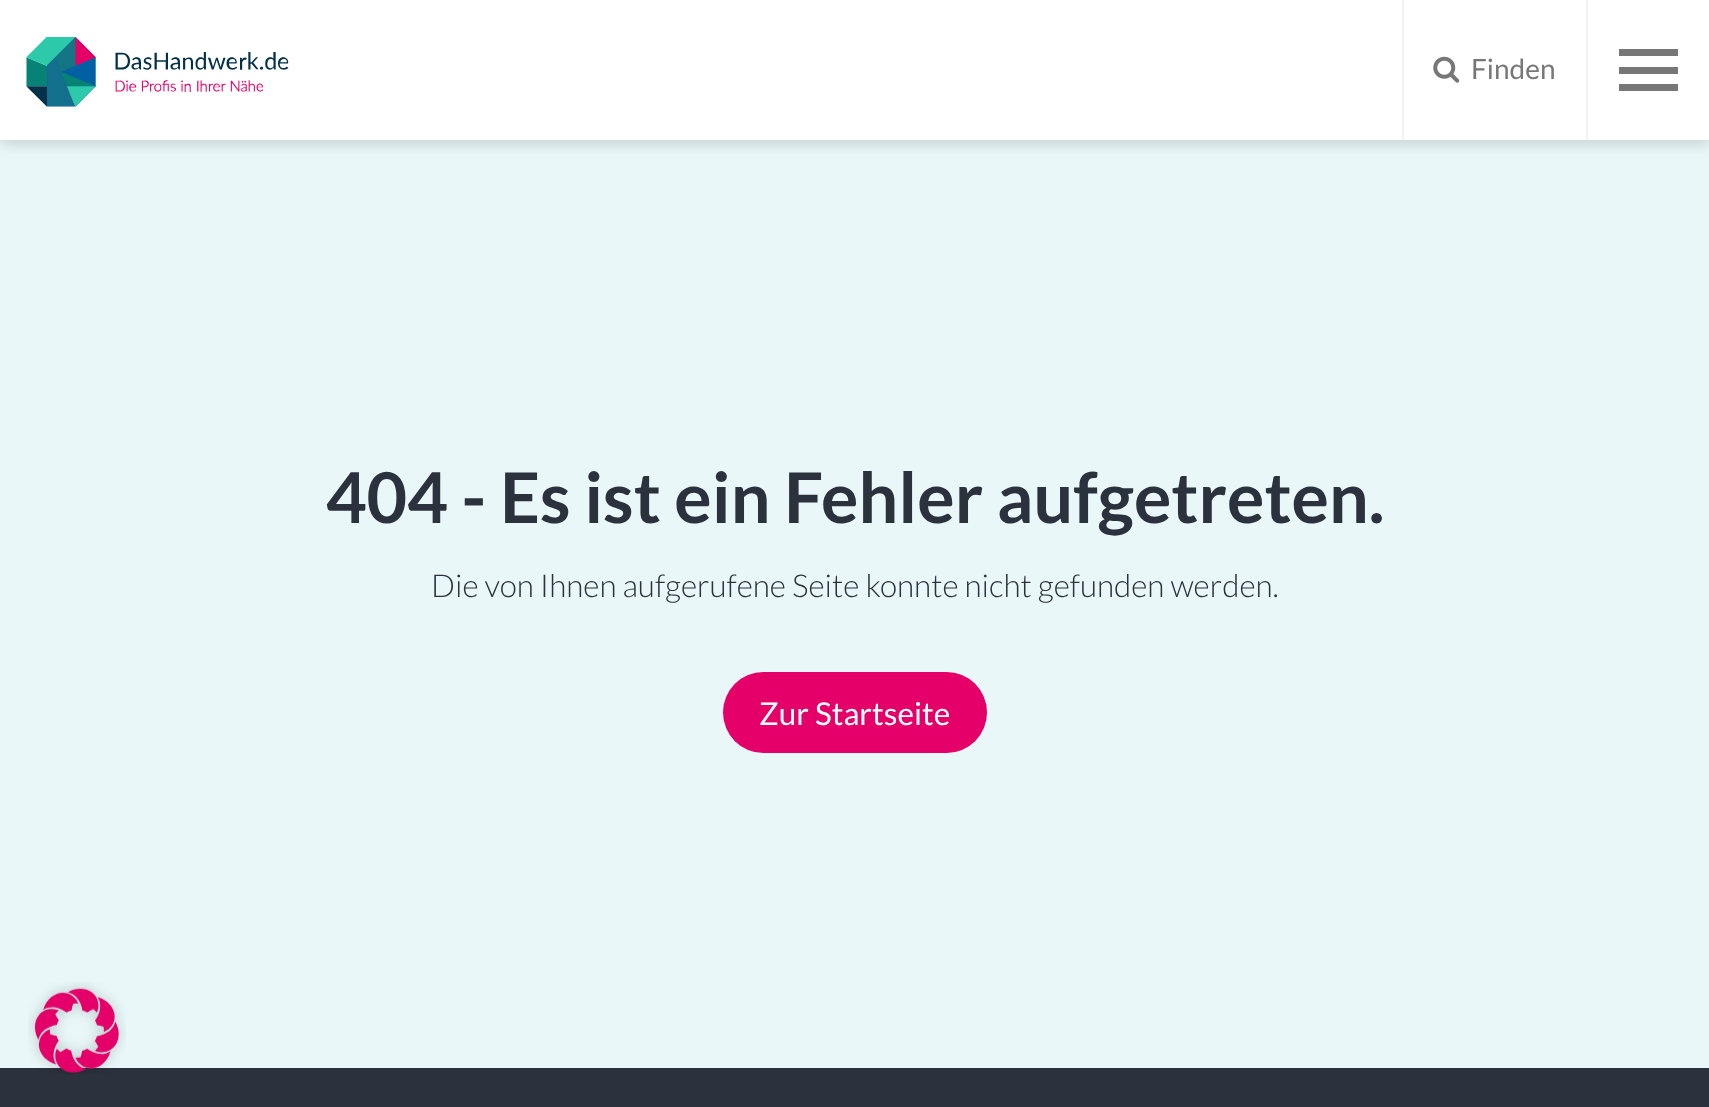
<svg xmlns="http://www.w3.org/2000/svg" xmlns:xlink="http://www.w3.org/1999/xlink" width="1709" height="1107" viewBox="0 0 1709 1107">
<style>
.cls-1{font:28px Lato;fill:#777777}
.cls-2{font:bold 70px Lato;fill:#2b323d}
.cls-3{font:300 31.5px Lato;fill:#2b323d}
.cls-4{font:31.5px Lato;fill:#ffffff}
</style>
<rect width="100%" height="100%" fill="#e9f7f9"/>
<rect fill="#000000" fill-opacity="0.15" filter="blur(7px)" x="0" y="4" width="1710" height="140"/>
<rect fill="#ffffff" x="0" y="0" width="1709" height="140"/>
<image xlink:href="image0.png" x="26" y="37" width="263" height="70"/>
<rect fill="#f2f2f2" x="1402" y="0" width="2" height="140"/>
<image xlink:href="image1.png" x="1433" y="56" width="27" height="27"/>
<rect fill="#f2f2f2" x="1586" y="0" width="2" height="140"/>
<rect fill="#777777" x="1619" y="67" width="59" height="7"/>
<rect fill="#777777" x="1619" y="49" width="59" height="7"/>
<rect fill="#777777" x="1619" y="84" width="59" height="7"/>
<rect fill="#e40068" x="723" y="672" width="264" height="81" rx="40.5"/>
<rect fill="#2b313d" x="0" y="1068" width="1709" height="39"/>
<image xlink:href="image2.png" x="28" y="982" width="98" height="92"/>
<text class="cls-1" x="1471" y="79">Finden</text>
<text class="cls-2" x="326" y="523">404 - Es ist ein Fehler aufgetreten.</text>
<text class="cls-3" x="431" y="597">Die von Ihnen aufgerufene Seite konnte nicht gefunden werden.</text>
<text class="cls-4" x="759" y="725">Zur Startseite</text>
</svg>
